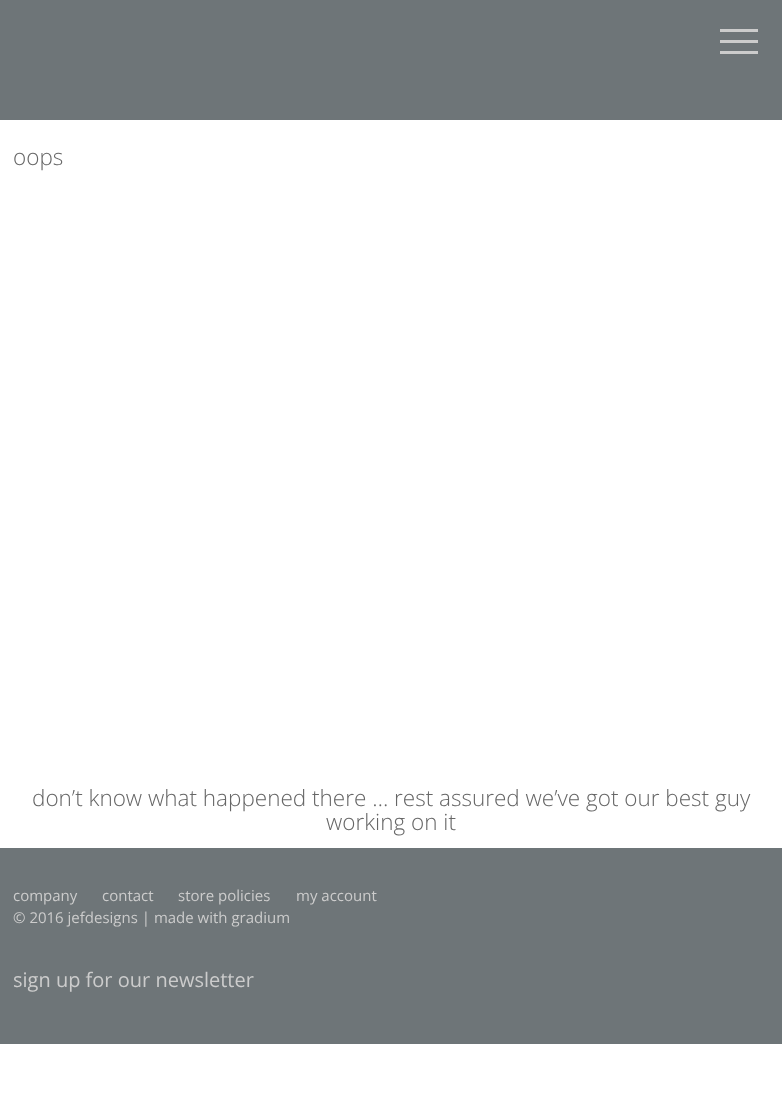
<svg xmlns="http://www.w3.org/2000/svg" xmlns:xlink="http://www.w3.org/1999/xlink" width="782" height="1113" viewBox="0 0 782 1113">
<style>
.cls-1{font:300 22.5px Open Sans;fill:#666666}
.cls-2{font:15px Open Sans;fill:#cccccc}
.cls-3{font:20px Open Sans;fill:#cccccc}
</style>
<rect width="100%" height="100%" fill="#ffffff"/>
<rect fill="#6e7578" x="0" y="0" width="782" height="120"/>
<rect fill="#cccccc" x="720" y="29" width="38" height="3"/>
<rect fill="#cccccc" x="720" y="40" width="38" height="3"/>
<rect fill="#cccccc" x="720" y="51" width="38" height="3"/>
<rect fill="#6e7578" x="0" y="848" width="782" height="196"/>
<text class="cls-1" x="13" y="165">oops</text>
<text class="cls-1" x="32" y="806">don’t know what happened there … rest assured we’ve got our best guy</text>
<text class="cls-1" x="326" y="830">working on it</text>
<text class="cls-2" x="13" y="901">company</text>
<text class="cls-2" x="102" y="901">contact</text>
<text class="cls-2" x="178" y="901">store policies</text>
<text class="cls-2" x="296" y="901">my account</text>
<text class="cls-2" x="13" y="923">© 2016 jefdesigns | made with gradium</text>
<text class="cls-3" x="13" y="987">sign up for our newsletter</text>
</svg>
